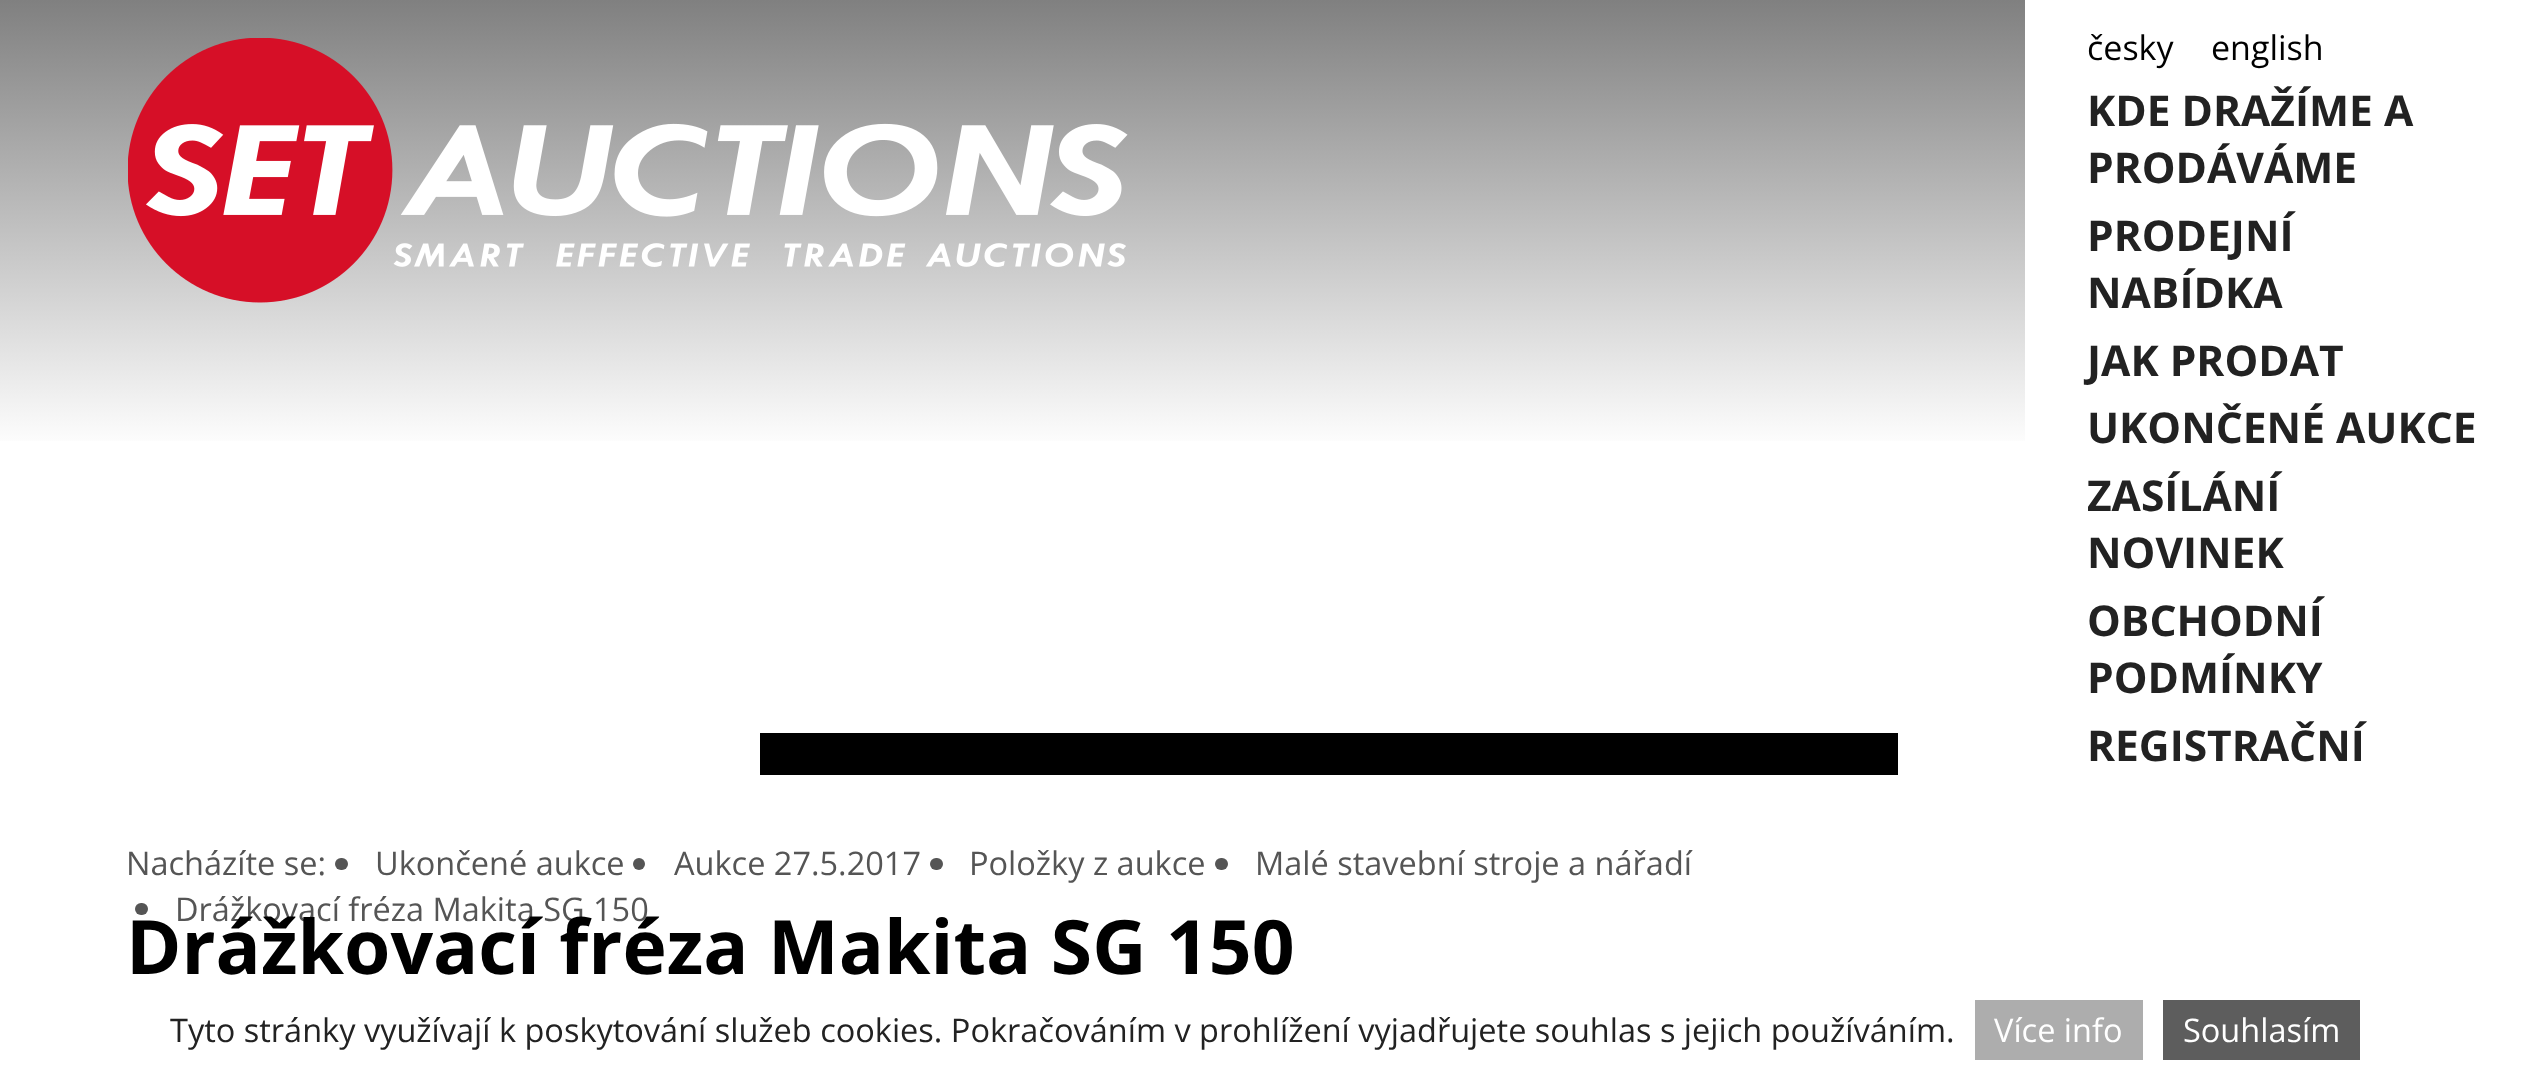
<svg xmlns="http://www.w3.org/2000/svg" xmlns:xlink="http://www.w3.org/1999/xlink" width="2528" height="1084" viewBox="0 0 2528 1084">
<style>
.cls-1{font:34px Open Sans;fill:#000000}
.cls-2{font:bold 42.5px Open Sans;fill:#222222}
.cls-3{font:32.5px Open Sans;fill:#555555}
.cls-4{font:bold 75px Open Sans;fill:#000000}
.cls-5{font:32.5px Open Sans;fill:#222222}
.cls-6{font:32.5px Open Sans;fill:#ffffff}
</style>
<defs>
<linearGradient id="g1" gradientUnits="userSpaceOnUse" x1="1013" y1="0" x2="1013" y2="450"><stop offset="0" stop-color="#808080"/><stop offset="1" stop-color="#ffffff"/></linearGradient>
</defs>
<rect width="100%" height="100%" fill="#ffffff"/>
<rect fill="url(#g1)" x="0" y="0" width="2025" height="441"/>
<image xlink:href="image0.png" x="128" y="38" width="1000" height="265"/>
<rect fill="#000000" x="760" y="733" width="1138" height="42"/>
<rect fill="#555555" x="335" y="858" width="13" height="12" rx="6"/>
<circle fill="#555555" cx="639" cy="864" r="6"/>
<rect fill="#555555" x="930" y="858" width="13" height="12" rx="6"/>
<rect fill="#555555" x="1215" y="858" width="13" height="12" rx="6"/>
<rect fill="#555555" x="135" y="903" width="13" height="12" rx="6"/>
<rect fill="#adadad" x="1975" y="1000" width="168" height="60"/>
<rect fill="#5d5d5d" x="2163" y="1000" width="197" height="60"/>
<text class="cls-1" x="2087" y="60">česky</text>
<text class="cls-1" x="2211" y="60">english</text>
<text class="cls-2"><tspan x="2087" y="126">KDE DRAŽÍME A</tspan><tspan x="2087" y="183">PRODÁVÁME</tspan><tspan x="2087" y="251">PRODEJNÍ</tspan><tspan x="2087" y="308">NABÍDKA</tspan><tspan x="2087" y="376">JAK PRODAT</tspan><tspan x="2087" y="443">UKONČENÉ AUKCE</tspan><tspan x="2087" y="511">ZASÍLÁNÍ</tspan><tspan x="2087" y="568">NOVINEK</tspan><tspan x="2087" y="636">OBCHODNÍ</tspan><tspan x="2087" y="693">PODMÍNKY</tspan><tspan x="2087" y="761">REGISTRAČNÍ</tspan></text>
<text class="cls-3" x="126" y="875">Nacházíte se:</text>
<text class="cls-3" x="375" y="875">Ukončené aukce</text>
<text class="cls-3" x="674" y="875">Aukce 27.5.2017</text>
<text class="cls-3" x="969" y="875">Položky z aukce</text>
<text class="cls-3" x="1255" y="875">Malé stavební stroje a nářadí</text>
<text class="cls-3" x="175" y="921">Drážkovací fréza Makita SG 150</text>
<text class="cls-4" x="126" y="974">Drážkovací fréza Makita SG 150</text>
<text class="cls-5" x="170" y="1042">Tyto stránky využívají k poskytování služeb cookies. Pokračováním v prohlížení vyjadřujete souhlas s jejich používáním.</text>
<text class="cls-6" x="1994" y="1042">Více info</text>
<text class="cls-6" x="2183" y="1042">Souhlasím</text>
</svg>
